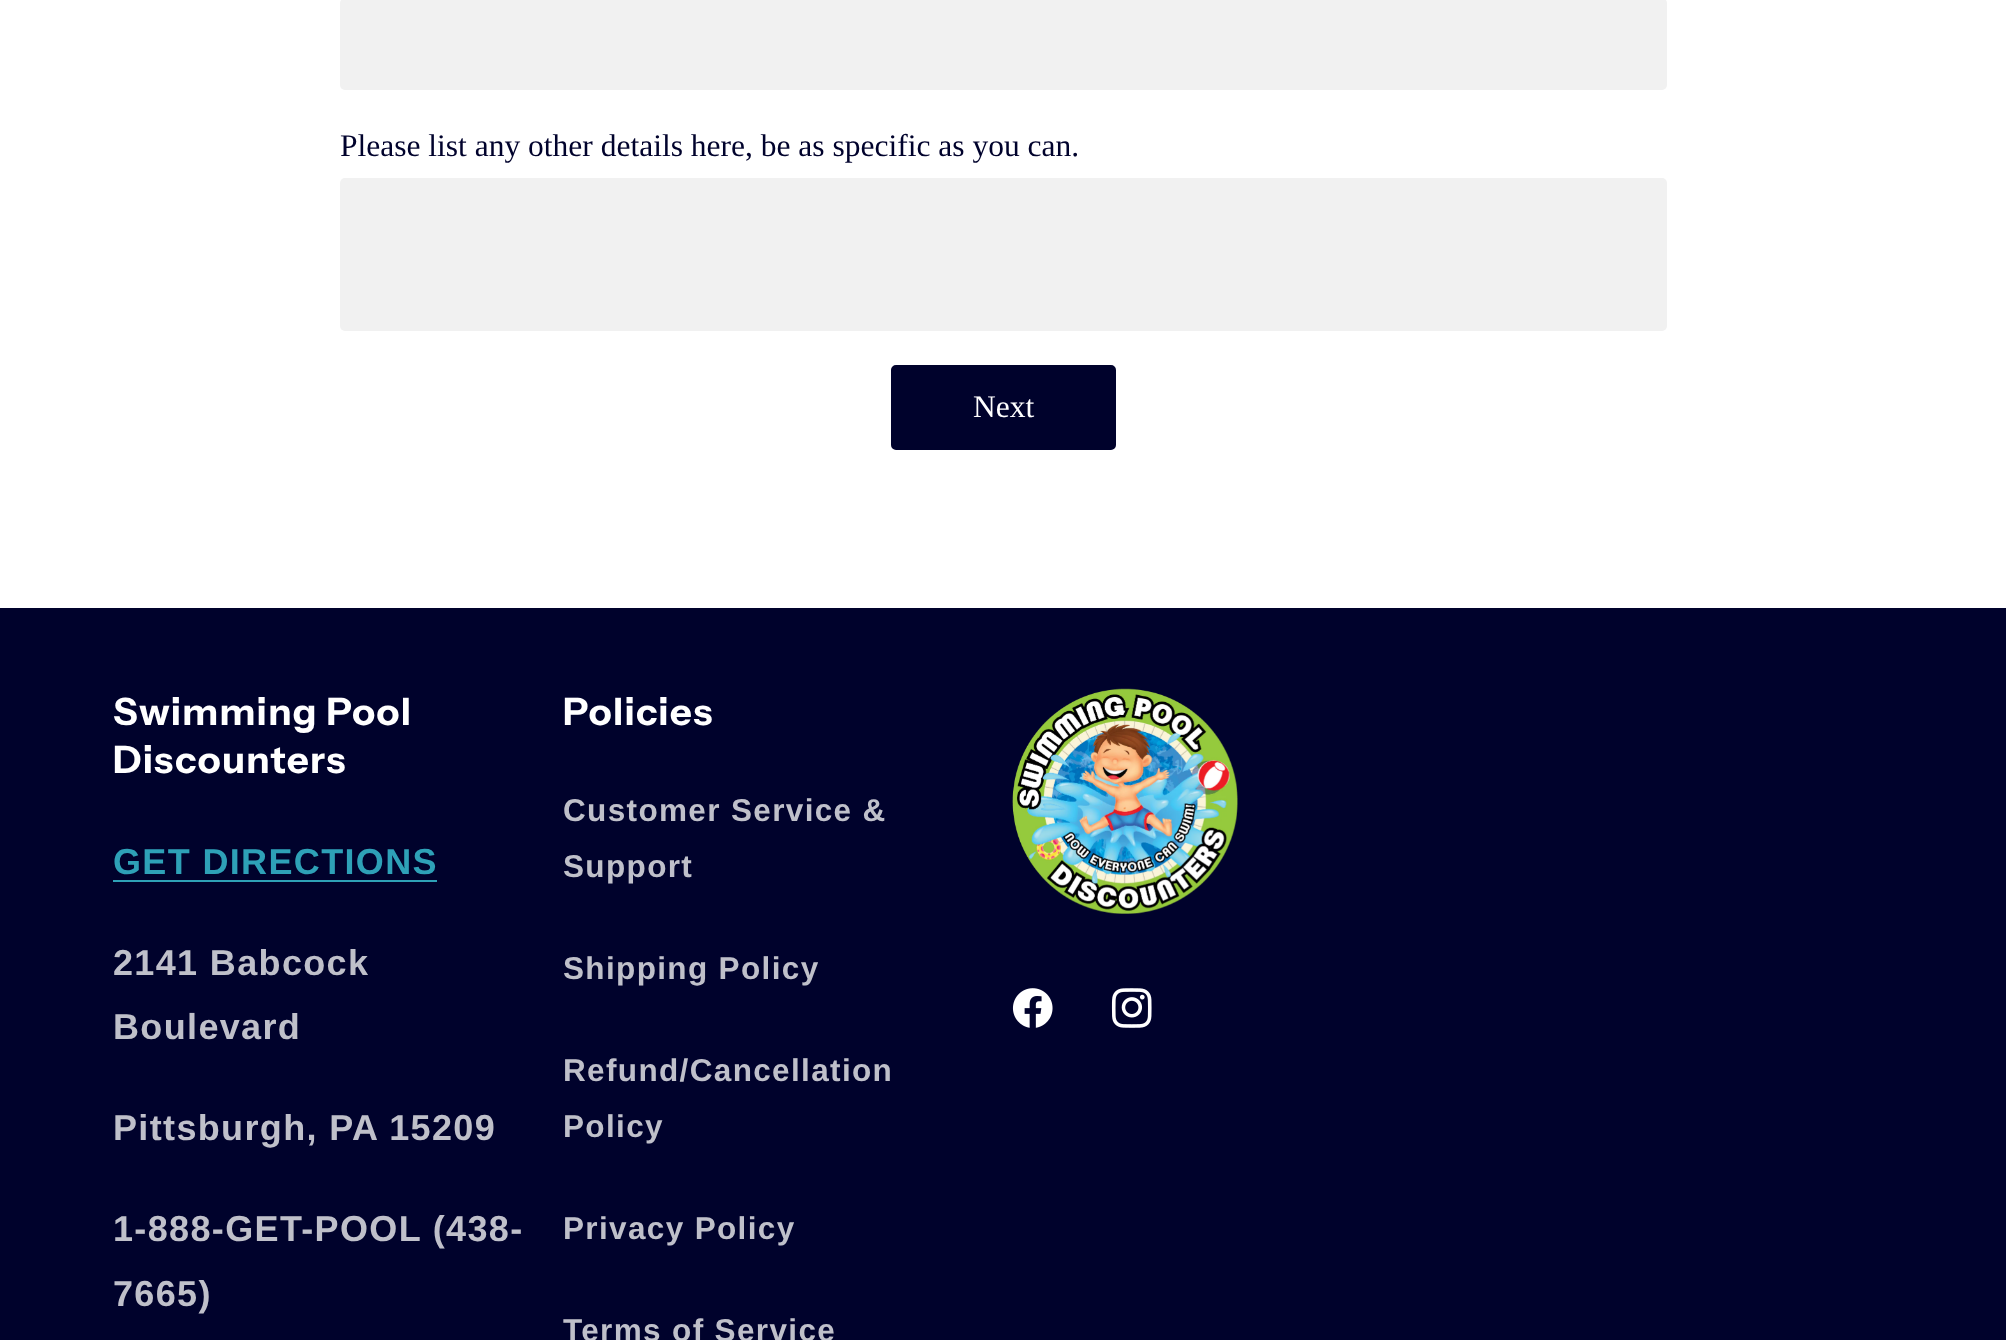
<svg xmlns="http://www.w3.org/2000/svg" xmlns:xlink="http://www.w3.org/1999/xlink" width="2006" height="1340" viewBox="0 0 2006 1340">
<style>
.cls-1{font:31.5px Liberation Serif;fill:#00022c}
.cls-2{font:31.5px Liberation Serif;fill:#ffffff}
.cls-3{font:bold 37.75px Instrument Sans;letter-spacing:1.4px;fill:#ffffff}
.cls-4{font:bold 36px Liberation Sans;letter-spacing:1.35px;fill:#2ea1b7}
.cls-5{font:bold 36px Liberation Sans;letter-spacing:1.35px;fill:#bfc0ca}
.cls-6{font:bold 31.5px Liberation Sans;letter-spacing:1.35px;fill:#bfc0ca}
</style>
<rect width="100%" height="100%" fill="#ffffff"/>
<rect fill="#f1f1f1" x="340" y="-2" width="1327" height="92" rx="5"/>
<rect fill="#f1f1f1" x="340" y="178" width="1327" height="153" rx="5"/>
<rect fill="#00022c" stroke="#00022c" stroke-width="2" x="892" y="366" width="223" height="83" rx="4"/>
<rect fill="#00022c" x="0" y="608" width="2006" height="732"/>
<rect fill="#2ea1b7" x="113" y="880" width="324" height="2"/>
<image xlink:href="image0.png" x="1012" y="688" width="226" height="226"/>
<image xlink:href="image1.png" x="1012" y="988" width="41" height="40"/>
<image xlink:href="image2.png" x="1111" y="988" width="41" height="40"/>
<text class="cls-1" x="340" y="156">Please list any other details here, be as specific as you can.</text>
<text class="cls-2" x="973" y="417">Next</text>
<text class="cls-3"><tspan x="113" y="725">Swimming Pool</tspan><tspan x="113" y="773">Discounters</tspan></text>
<text class="cls-4" x="113" y="874">GET DIRECTIONS</text>
<text class="cls-5"><tspan x="113" y="975">2141 Babcock</tspan><tspan x="113" y="1039">Boulevard</tspan></text>
<text class="cls-5" x="113" y="1140">Pittsburgh, PA 15209</text>
<text class="cls-5"><tspan x="113" y="1241">1-888-GET-POOL (438-</tspan><tspan x="113" y="1306">7665)</tspan></text>
<text class="cls-3" x="563" y="725">Policies</text>
<text class="cls-6"><tspan x="563" y="821">Customer Service &amp;</tspan><tspan x="563" y="877">Support</tspan></text>
<text class="cls-6" x="563" y="979">Shipping Policy</text>
<text class="cls-6"><tspan x="563" y="1081">Refund/Cancellation</tspan><tspan x="563" y="1137">Policy</tspan></text>
<text class="cls-6" x="563" y="1239">Privacy Policy</text>
<text class="cls-6" x="563" y="1341">Terms of Service</text>
</svg>
